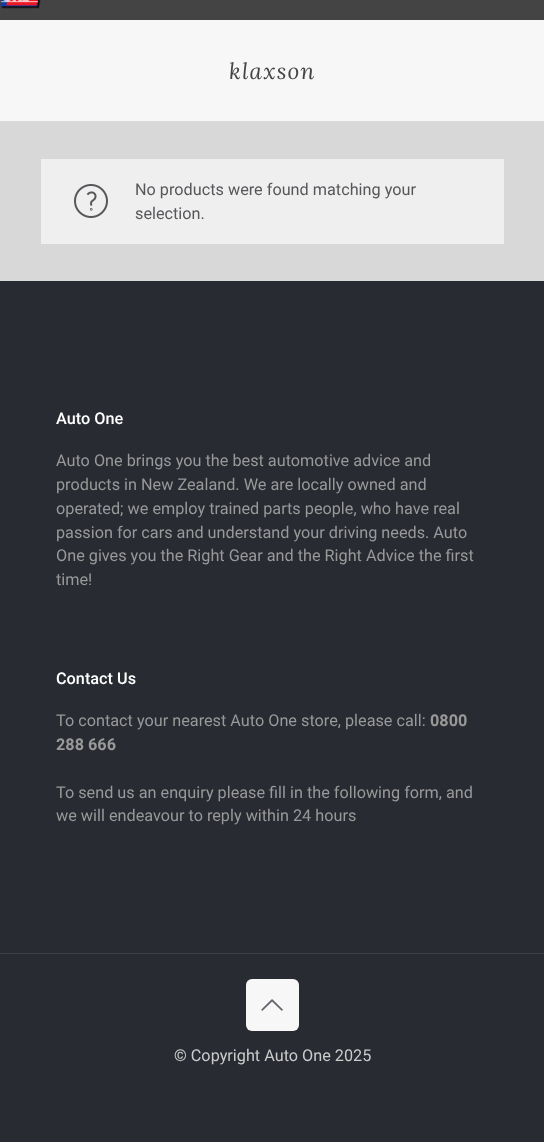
<svg xmlns="http://www.w3.org/2000/svg" xmlns:xlink="http://www.w3.org/1999/xlink" width="544" height="1142" viewBox="0 0 544 1142">
<style>
.cls-1{font:italic 22.5px Lora;letter-spacing:1.25px;fill:#444444}
.cls-2{font:16.25px Roboto;fill:#57575b}
.cls-3{font:500 16.25px Roboto;fill:#ffffff}
.cls-4{font:16.25px Roboto;fill:#999999}
.cls-5{font:bold 16.25px Roboto;fill:#999999}
.cls-6{font:16.25px Roboto;fill:#cccccc}
</style>
<rect width="100%" height="100%" fill="#d8d8d8"/>
<rect fill="#444444" x="0" y="0" width="544" height="20"/>
<image xlink:href="image0.png" x="0" y="0" width="41" height="9"/>
<rect fill="#f7f7f7" x="0" y="20" width="544" height="101"/>
<rect fill="#efefef" x="41" y="159" width="463" height="85"/>
<image xlink:href="image1.png" x="74" y="184" width="34" height="34"/>
<rect fill="#292b33" x="0" y="281" width="544" height="861"/>
<rect fill="#3e4047" x="0" y="953" width="544" height="1"/>
<rect fill="#f7f7f7" x="246" y="979" width="53" height="52" rx="6"/>
<image xlink:href="image2.png" x="261" y="999" width="22" height="12"/>
<text class="cls-1" x="229" y="79">klaxson</text>
<text class="cls-2"><tspan x="135" y="195">No products were found matching your</tspan><tspan x="135" y="219">selection.</tspan></text>
<text class="cls-3" x="56" y="424">Auto One</text>
<text class="cls-4"><tspan x="56" y="466">Auto One brings you the best automotive advice and</tspan><tspan x="56" y="490">products in New Zealand. We are locally owned and</tspan><tspan x="56" y="514">operated; we employ trained parts people, who have real</tspan><tspan x="56" y="538">passion for cars and understand your driving needs. Auto</tspan><tspan x="56" y="561">One gives you the Right Gear and the Right Advice the first</tspan><tspan x="56" y="585">time!</tspan></text>
<text class="cls-3" x="56" y="684">Contact Us</text>
<text class="cls-4" x="56" y="726">To contact your nearest Auto One store, please call:</text>
<text class="cls-5" x="430" y="726">0800</text>
<text class="cls-5" x="56" y="750">288 666</text>
<text class="cls-4"><tspan x="56" y="798">To send us an enquiry please fill in the following form, and</tspan><tspan x="56" y="821">we will endeavour to reply within 24 hours</tspan></text>
<text class="cls-6" x="174" y="1061">© Copyright Auto One 2025</text>
</svg>
